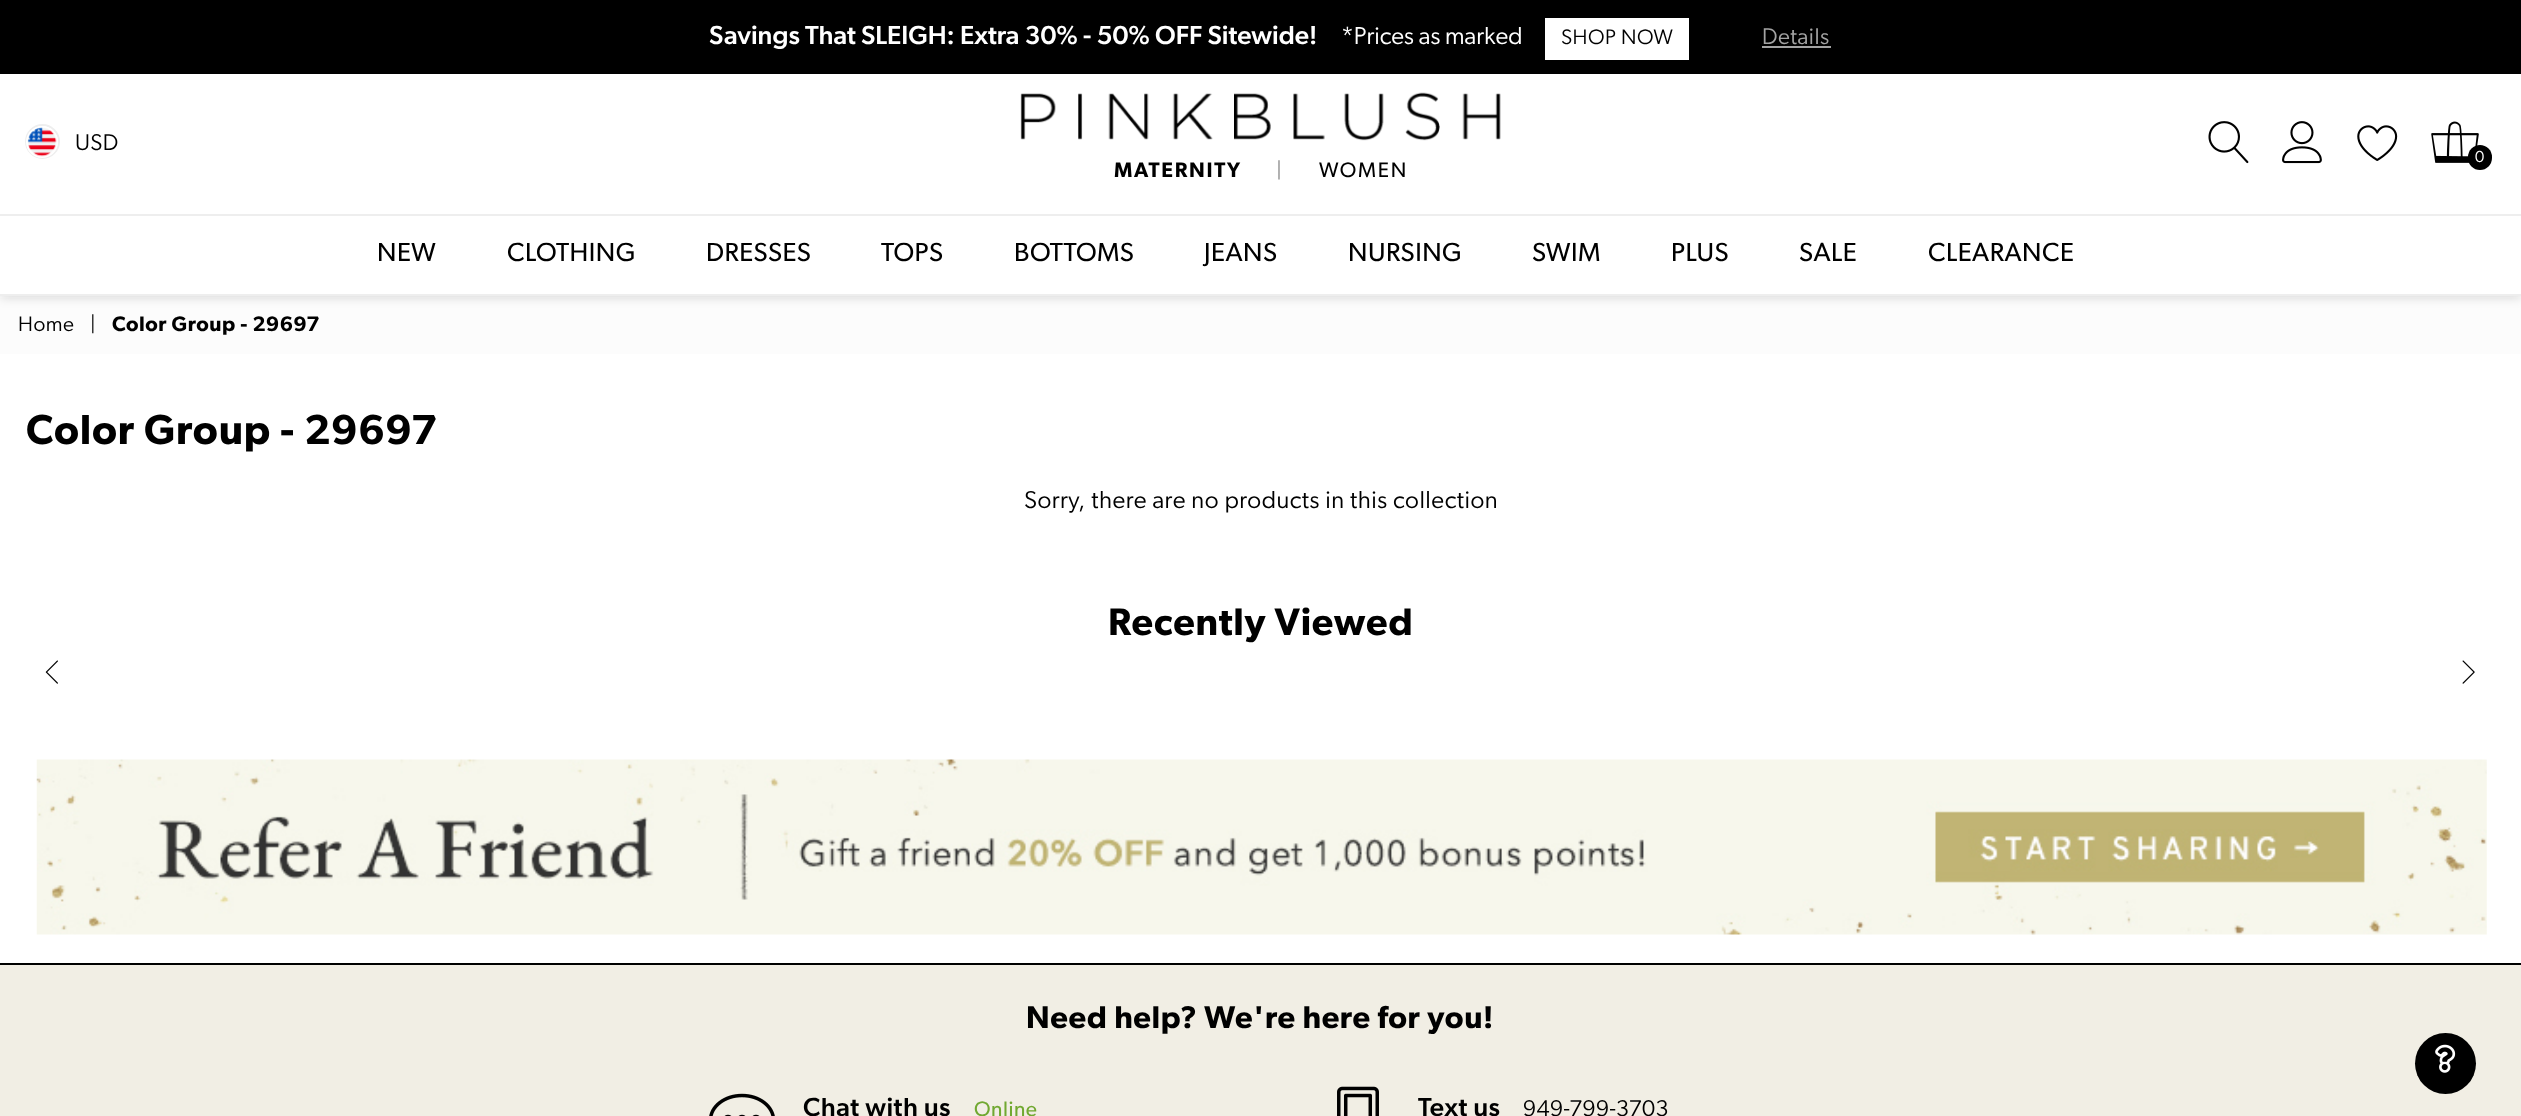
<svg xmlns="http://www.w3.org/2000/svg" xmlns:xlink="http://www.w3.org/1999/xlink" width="2521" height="1116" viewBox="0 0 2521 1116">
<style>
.cls-1{font:500 26.25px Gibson;fill:#ffffff}
.cls-2{font:24.5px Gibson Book;fill:#ffffff}
.cls-3{font:21px Gibson Book;letter-spacing:0.5px;fill:#000000}
.cls-4{font:22.75px Gibson Book;letter-spacing:0.5px;fill:#a3a3a3}
.cls-5{font:22.75px Gibson Book;letter-spacing:0.5px;fill:#000000}
.cls-6{font:16px Gibson Book;letter-spacing:0.5px;fill:#ffffff}
.cls-7{font:600 21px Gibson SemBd;letter-spacing:1.75px;fill:#000000}
.cls-8{font:21px Gibson;letter-spacing:1.75px;fill:#999999}
.cls-9{font:21px Gibson;letter-spacing:1.75px;fill:#000000}
.cls-10{font:26.25px Gibson;letter-spacing:0.5px;fill:#000000}
.cls-11{font:600 21px Gibson SemBd;letter-spacing:0.5px;fill:#000000}
.cls-12{font:600 42px Gibson SemBd;letter-spacing:0.8px;fill:#000000}
.cls-13{font:24.5px Gibson Book;letter-spacing:0.5px;fill:#000000}
.cls-14{font:600 38.5px Gibson SemBd;letter-spacing:0.75px;fill:#000000}
.cls-15{font:600 31.5px Gibson SemBd;letter-spacing:0.6px;fill:#000000}
.cls-16{font:500 26.25px Gibson;letter-spacing:0.5px;fill:#000000}
.cls-17{font:21px Gibson;letter-spacing:0.5px;fill:#71a831}
</style>
<rect width="100%" height="100%" fill="#ffffff"/>
<rect fill="#fcfcfc" x="0" y="298" width="2521" height="56"/>
<rect fill="#000000" fill-opacity="0.2" filter="blur(6px)" x="0" y="0" width="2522" height="296"/>
<rect fill="#ffffff" x="0" y="74" width="2521" height="220"/>
<rect fill="#eeeeee" x="0" y="294" width="2521" height="2"/>
<rect fill="#000000" x="0" y="0" width="2521" height="74"/>
<rect fill="#ffffff" x="1545" y="18" width="144" height="42"/>
<rect fill="#a3a3a3" x="1762" y="46" width="69" height="2"/>
<circle fill="none" stroke="#eeeeee" stroke-width="2" cx="42.5" cy="141.5" r="16.5"/>
<circle fill="none" stroke="#ffffff" stroke-width="2" cx="42" cy="142" r="15"/>
<image xlink:href="image0.png" x="27" y="127" width="30" height="30"/>
<image xlink:href="image1.png" x="2208" y="121" width="41" height="43"/>
<image xlink:href="image2.png" x="2282" y="121" width="40" height="43"/>
<image xlink:href="image3.png" x="2357" y="125" width="41" height="36"/>
<image xlink:href="image4.png" x="2431" y="121" width="48" height="42"/>
<rect fill="#000000" x="2468" y="145" width="24" height="25" rx="12"/>
<image xlink:href="image5.png" x="1020" y="92" width="481" height="49"/>
<rect fill="#eeeeee" x="0" y="214" width="2521" height="2"/>
<image xlink:href="image6.png" x="45" y="660" width="13" height="24"/>
<image xlink:href="image7.png" x="2462" y="660" width="13" height="24"/>
<image xlink:href="image8.png" x="36" y="759" width="2451" height="176"/>
<rect fill="#f1eee4" x="0" y="965" width="2521" height="151"/>
<rect fill="#000000" x="0" y="963" width="2521" height="2"/>
<image xlink:href="image9.png" x="709" y="1093" width="66" height="23"/>
<image xlink:href="image10.png" x="1337" y="1086" width="42" height="30"/>
<circle fill="#000000" cx="2445.5" cy="1063.5" r="30.5"/>
<image xlink:href="image11.png" x="2435" y="1044" width="21" height="29"/>
<text class="cls-1" x="709" y="44">Savings That SLEIGH: Extra 30% - 50% OFF Sitewide!</text>
<text class="cls-2" x="1341" y="44">*Prices as marked</text>
<text class="cls-3" x="1561" y="44">SHOP NOW</text>
<text class="cls-4" x="1762" y="44">Details</text>
<text class="cls-5" x="75" y="150">USD</text>
<text class="cls-6" x="2475" y="162">0</text>
<text class="cls-7" x="1114" y="177">MATERNITY</text>
<text class="cls-8" x="1276" y="177">|</text>
<text class="cls-9" x="1319" y="177">WOMEN</text>
<text class="cls-10" x="377" y="261">NEW</text>
<text class="cls-10" x="507" y="261">CLOTHING</text>
<text class="cls-10" x="706" y="261">DRESSES</text>
<text class="cls-10" x="881" y="261">TOPS</text>
<text class="cls-10" x="1014" y="261">BOTTOMS</text>
<text class="cls-10" x="1204" y="261">JEANS</text>
<text class="cls-10" x="1348" y="261">NURSING</text>
<text class="cls-10" x="1532" y="261">SWIM</text>
<text class="cls-10" x="1671" y="261">PLUS</text>
<text class="cls-10" x="1799" y="261">SALE</text>
<text class="cls-10" x="1928" y="261">CLEARANCE</text>
<text class="cls-3" x="18" y="331">Home</text>
<text class="cls-3" x="90" y="331">|</text>
<text class="cls-11" x="112" y="331">Color Group - 29697</text>
<text class="cls-12" x="26" y="444">Color Group - 29697</text>
<text class="cls-13" x="1024" y="508">Sorry, there are no products in this collection</text>
<text class="cls-14" x="1108" y="635">Recently Viewed</text>
<text class="cls-15" x="1026" y="1028">Need help? We're here for you!</text>
<text class="cls-16" x="803" y="1116">Chat with us</text>
<text class="cls-17" x="974" y="1116">Online</text>
<text class="cls-16" x="1418" y="1116">Text us</text>
<text class="cls-5" x="1523" y="1116">949-799-3703</text>
</svg>
